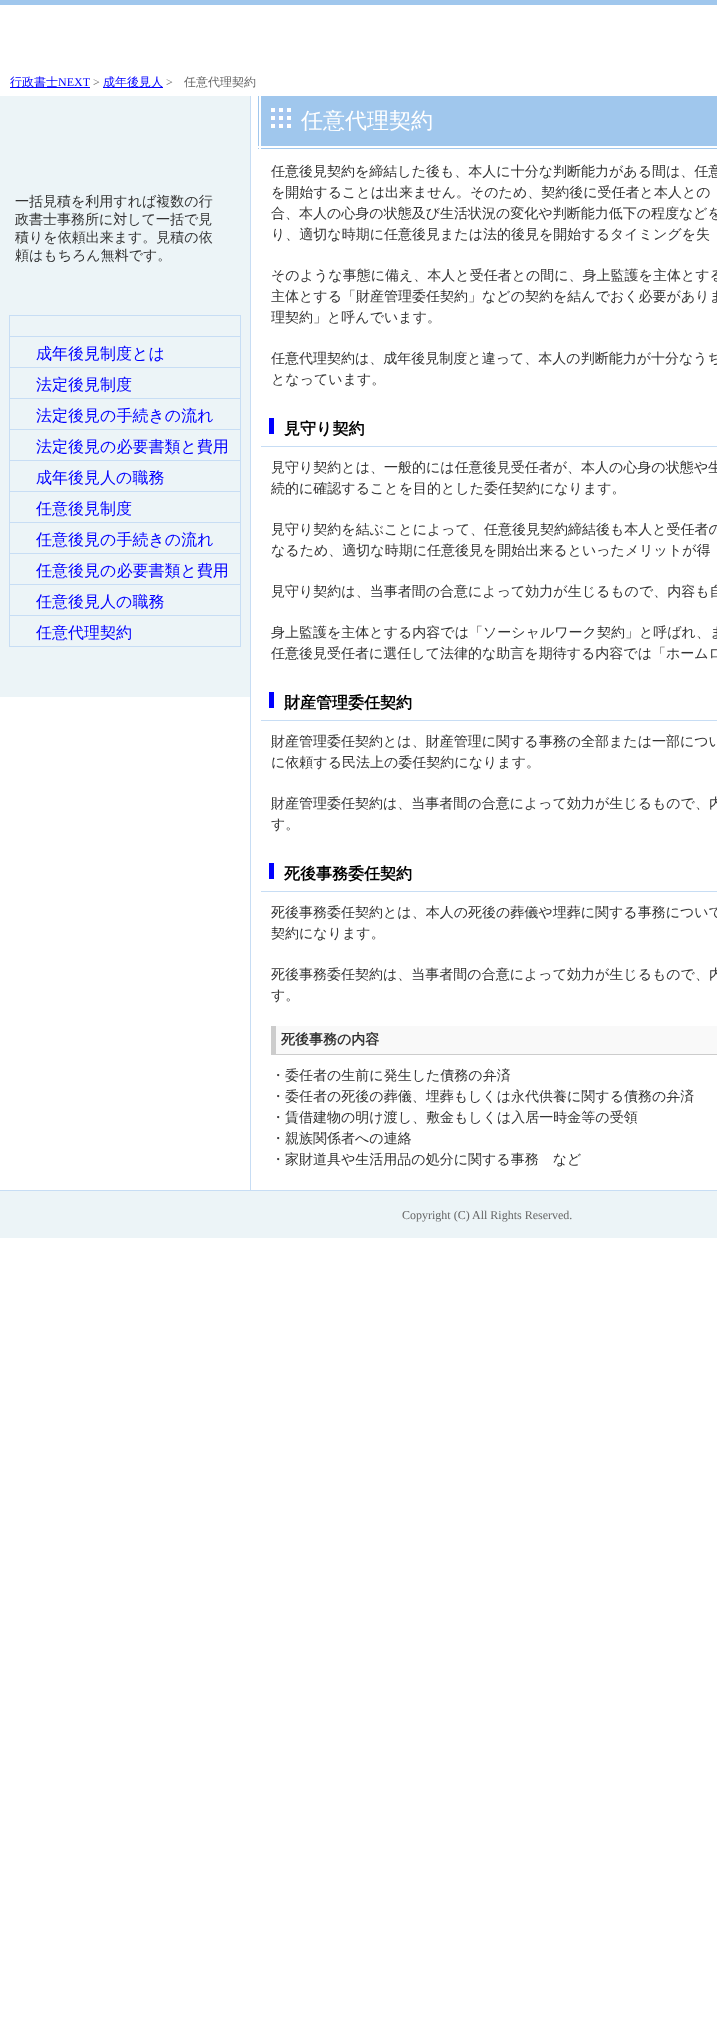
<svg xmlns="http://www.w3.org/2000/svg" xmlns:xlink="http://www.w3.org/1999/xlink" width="717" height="2026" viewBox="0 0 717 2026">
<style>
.cls-1{font:500 12px WenQuanYi Zen Hei;fill:#0000ff}
.cls-2{font:12px Liberation Serif;fill:#0000ff}
.cls-3{font:12px Liberation Serif;fill:#666666}
.cls-4{font:500 12px WenQuanYi Zen Hei;fill:#666666}
.cls-5{font:500 14px WenQuanYi Zen Hei;fill:#333333}
.cls-6{font:500 16px WenQuanYi Zen Hei;fill:#0000ff}
.cls-7{font:500 22px WenQuanYi Zen Hei;fill:#ffffff}
.cls-8{font:bold 16px WenQuanYi Zen Hei;fill:#000000}
.cls-9{font:bold 14px WenQuanYi Zen Hei;fill:#333333}
</style>
<rect width="100%" height="100%" fill="#ffffff"/>
<rect fill="#a0c7ed" x="0" y="0" width="717" height="5"/>
<rect fill="#0000ff" x="10" y="87" width="80" height="1"/>
<rect fill="#0000ff" x="103" y="87" width="60" height="1"/>
<rect fill="#ecf4f7" x="0" y="96" width="250" height="601"/>
<rect fill="none" stroke="#c7ddf4" x="9.5" y="315.5" width="231" height="21"/>
<rect fill="#c7ddf4" x="240" y="337" width="1" height="310"/>
<rect fill="#c7ddf4" x="9" y="367" width="232" height="1"/>
<rect fill="#c7ddf4" x="9" y="337" width="1" height="31"/>
<rect fill="#c7ddf4" x="9" y="398" width="232" height="1"/>
<rect fill="#c7ddf4" x="9" y="368" width="1" height="31"/>
<rect fill="#c7ddf4" x="9" y="429" width="232" height="1"/>
<rect fill="#c7ddf4" x="9" y="399" width="1" height="31"/>
<rect fill="#c7ddf4" x="9" y="460" width="232" height="1"/>
<rect fill="#c7ddf4" x="9" y="430" width="1" height="31"/>
<rect fill="#c7ddf4" x="9" y="491" width="232" height="1"/>
<rect fill="#c7ddf4" x="9" y="461" width="1" height="31"/>
<rect fill="#c7ddf4" x="9" y="522" width="232" height="1"/>
<rect fill="#c7ddf4" x="9" y="492" width="1" height="31"/>
<rect fill="#c7ddf4" x="9" y="553" width="232" height="1"/>
<rect fill="#c7ddf4" x="9" y="523" width="1" height="31"/>
<rect fill="#c7ddf4" x="9" y="584" width="232" height="1"/>
<rect fill="#c7ddf4" x="9" y="554" width="1" height="31"/>
<rect fill="#c7ddf4" x="9" y="615" width="232" height="1"/>
<rect fill="#c7ddf4" x="9" y="585" width="1" height="31"/>
<rect fill="#c7ddf4" x="9" y="646" width="232" height="1"/>
<rect fill="#c7ddf4" x="9" y="616" width="1" height="31"/>
<rect fill="#c7ddf4" x="250" y="96" width="1" height="1094"/>
<rect fill="#a0c7ed" x="258" y="96" width="459" height="53"/>
<rect fill="#ffffff" x="256" y="146" width="461" height="2"/>
<rect fill="#ffffff" x="259" y="96" width="2" height="55"/>
<image xlink:href="image0.png" x="271" y="108" width="20" height="20"/>
<rect fill="#c7ddf4" x="261" y="446" width="456" height="1"/>
<rect fill="#0000ff" x="269" y="418" width="5" height="16"/>
<rect fill="#c7ddf4" x="261" y="720" width="456" height="1"/>
<rect fill="#0000ff" x="269" y="692" width="5" height="16"/>
<rect fill="#c7ddf4" x="261" y="891" width="456" height="1"/>
<rect fill="#0000ff" x="269" y="863" width="5" height="16"/>
<rect fill="#f9f9f9" x="276" y="1026" width="441" height="28"/>
<rect fill="#cccccc" x="271" y="1054" width="446" height="1"/>
<rect fill="#cccccc" x="271" y="1026" width="5" height="29"/>
<rect fill="#ecf4f7" x="0" y="1191" width="717" height="47"/>
<rect fill="#c7ddf4" x="0" y="1190" width="717" height="1"/>
<text class="cls-1" x="10" y="86">行政書士</text>
<text class="cls-2" x="58" y="86">NEXT</text>
<text class="cls-3" x="93" y="86">&gt;</text>
<text class="cls-1" x="103" y="86">成年後見人</text>
<text class="cls-3" x="166" y="86">&gt;</text>
<text class="cls-4" x="184" y="86">任意代理契約</text>
<text class="cls-5"><tspan x="15" y="206">一括見積を利用すれば複数の行</tspan><tspan x="15" y="224">政書士事務所に対して一括で見</tspan><tspan x="15" y="242">積りを依頼出来ます。見積の依</tspan><tspan x="15" y="260">頼はもちろん無料です。</tspan></text>
<text class="cls-6"><tspan x="36" y="359">成年後見制度とは</tspan><tspan x="36" y="390">法定後見制度</tspan><tspan x="36" y="421">法定後見の手続きの流れ</tspan><tspan x="36" y="452">法定後見の必要書類と費用</tspan><tspan x="36" y="483">成年後見人の職務</tspan><tspan x="36" y="514">任意後見制度</tspan><tspan x="36" y="545">任意後見の手続きの流れ</tspan><tspan x="36" y="576">任意後見の必要書類と費用</tspan><tspan x="36" y="607">任意後見人の職務</tspan><tspan x="36" y="638">任意代理契約</tspan></text>
<text class="cls-7" x="301" y="128">任意代理契約</text>
<text class="cls-5"><tspan x="271" y="176">任意後見契約を締結した後も、本人に十分な判断能力がある間は、任意</tspan><tspan x="271" y="197">を開始することは出来ません。そのため、契約後に受任者と本人との</tspan><tspan x="271" y="218">合、本人の心身の状態及び生活状況の変化や判断能力低下の程度などを</tspan><tspan x="271" y="239">り、適切な時期に任意後見または法的後見を開始するタイミングを失</tspan></text>
<text class="cls-5"><tspan x="271" y="280">そのような事態に備え、本人と受任者との間に、身上監護を主体とする</tspan><tspan x="271" y="301">主体とする「財産管理委任契約」などの契約を結んでおく必要がありま</tspan><tspan x="271" y="322">理契約」と呼んでいます。</tspan></text>
<text class="cls-5"><tspan x="271" y="363">任意代理契約は、成年後見制度と違って、本人の判断能力が十分なうち</tspan><tspan x="271" y="384">となっています。</tspan></text>
<text class="cls-8" x="284" y="434">見守り契約</text>
<text class="cls-5"><tspan x="271" y="472">見守り契約とは、一般的には任意後見受任者が、本人の心身の状態や生</tspan><tspan x="271" y="493">続的に確認することを目的とした委任契約になります。</tspan></text>
<text class="cls-5"><tspan x="271" y="534">見守り契約を結ぶことによって、任意後見契約締結後も本人と受任者の</tspan><tspan x="271" y="555">なるため、適切な時期に任意後見を開始出来るといったメリットが得</tspan></text>
<text class="cls-5" x="271" y="596">見守り契約は、当事者間の合意によって効力が生じるもので、内容も自</text>
<text class="cls-5"><tspan x="271" y="637">身上監護を主体とする内容では「ソーシャルワーク契約」と呼ばれ、ま</tspan><tspan x="271" y="658">任意後見受任者に選任して法律的な助言を期待する内容では「ホームロ</tspan></text>
<text class="cls-8" x="284" y="708">財産管理委任契約</text>
<text class="cls-5"><tspan x="271" y="746">財産管理委任契約とは、財産管理に関する事務の全部または一部につい</tspan><tspan x="271" y="767">に依頼する民法上の委任契約になります。</tspan></text>
<text class="cls-5"><tspan x="271" y="808">財産管理委任契約は、当事者間の合意によって効力が生じるもので、内</tspan><tspan x="271" y="829">す。</tspan></text>
<text class="cls-8" x="284" y="879">死後事務委任契約</text>
<text class="cls-5"><tspan x="271" y="917">死後事務委任契約とは、本人の死後の葬儀や埋葬に関する事務について</tspan><tspan x="271" y="938">契約になります。</tspan></text>
<text class="cls-5"><tspan x="271" y="979">死後事務委任契約は、当事者間の合意によって効力が生じるもので、内</tspan><tspan x="271" y="1000">す。</tspan></text>
<text class="cls-9" x="281" y="1044">死後事務の内容</text>
<text class="cls-5"><tspan x="271" y="1080">・委任者の生前に発生した債務の弁済</tspan><tspan x="271" y="1101">・委任者の死後の葬儀、埋葬もしくは永代供養に関する債務の弁済</tspan><tspan x="271" y="1122">・賃借建物の明け渡し、敷金もしくは入居一時金等の受領</tspan><tspan x="271" y="1143">・親族関係者への連絡</tspan><tspan x="271" y="1164">・家財道具や生活用品の処分に関する事務　など</tspan></text>
<text class="cls-3" x="402" y="1219">Copyright (C) All Rights Reserved.</text>
</svg>
